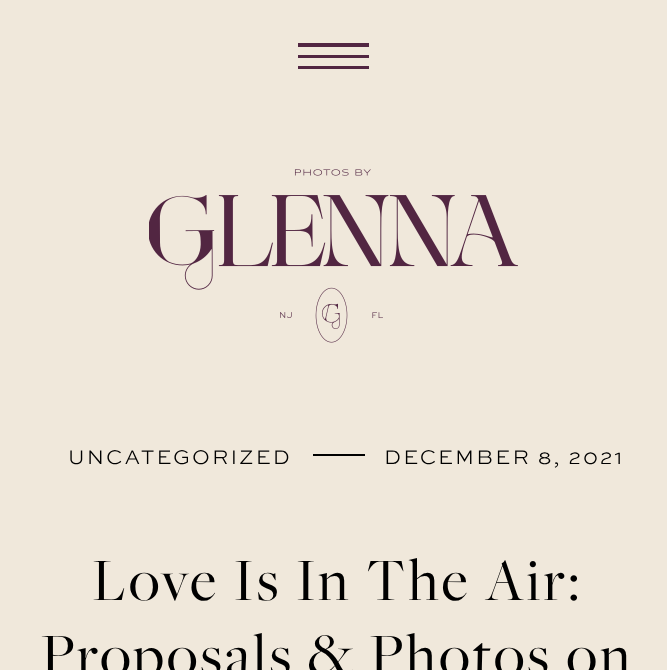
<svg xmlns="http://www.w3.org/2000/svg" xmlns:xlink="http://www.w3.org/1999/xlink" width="667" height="670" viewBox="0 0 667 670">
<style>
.cls-1{font:300 20.8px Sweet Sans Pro;letter-spacing:2.1px;fill:#000000}
.cls-2{font:62.5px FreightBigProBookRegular;letter-spacing:3.1px;fill:#000000}
</style>
<rect width="100%" height="100%" fill="#f0e8db"/>
<path fill="#522642" d="M298 66H369V69H298ZM298 55H369V58H298ZM298 43H369V47H298Z"/>
<image xlink:href="image0.png" x="149" y="169" width="369" height="174"/>
<rect fill="#000000" x="313" y="454" width="52" height="2"/>
<text class="cls-1" x="68" y="464">UNCATEGORIZED</text>
<text class="cls-1" x="384" y="464">DECEMBER 8, 2021</text>
<text class="cls-2" x="92" y="600">Love Is In The Air:</text>
<text class="cls-2" x="41" y="675">Proposals &amp; Photos on</text>
</svg>
